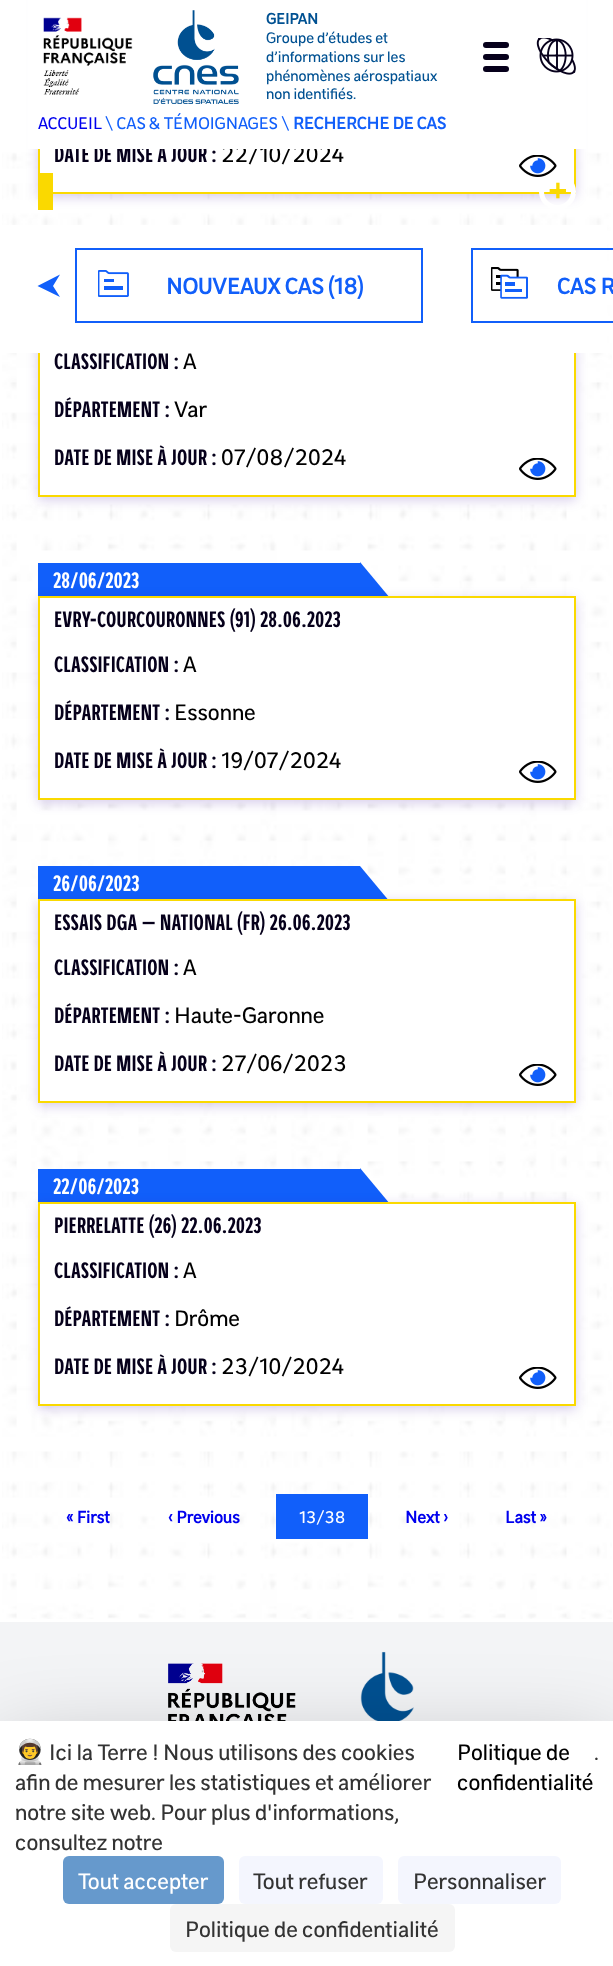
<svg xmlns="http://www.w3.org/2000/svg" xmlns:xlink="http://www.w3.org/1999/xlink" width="613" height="1966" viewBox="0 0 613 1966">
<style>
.cls-1{font:bold 24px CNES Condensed;fill:#06001b}
.cls-2{font:24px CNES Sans;fill:#000000}
.cls-3{font:16.25px CNES Sans;fill:#005192}
.cls-4{font:bold 16.25px CNES Sans;fill:#005192}
.cls-5{font:bold 18px CNES Sans;fill:#115ffa}
.cls-6{font:18px CNES Sans;fill:#115ffa}
.cls-7{font:18px CNES Sans;fill:#0000ee}
.cls-8{font:bold 24px CNES Condensed;fill:#ffffff}
.cls-9{font:bold 18px CNES Sans;fill:#0000ee}
.cls-10{font:18px CNES Sans;fill:#ffffff}
.cls-11{font:bold 33px CNES Sans;fill:#fad900}
.cls-12{font:bold 24px CNES Sans;fill:#115ffa}
.cls-13{font:24px Noto Color Emoji;fill:#333333}
.cls-14{font:24px CNES Sans;fill:#333333}
.cls-15{font:24px CNES Sans;fill:#ffffff}
</style>
<rect width="100%" height="100%" fill="#ffffff"/>
<image xlink:href="image3.png" x="2" y="149" width="610" height="1470"/>
<rect fill="#32009b" fill-opacity="0.2" filter="blur(6px)" x="38" y="-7" width="538" height="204"/>
<rect fill="#ffffff" x="40" y="149" width="534" height="43"/>
<rect fill="none" stroke="#fad900" stroke-width="2" x="39" y="-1" width="536" height="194"/>
<image xlink:href="image4.png" x="519" y="155" width="38" height="22"/>
<rect fill="#32009b" fill-opacity="0.2" filter="blur(6px)" x="38" y="296" width="538" height="204"/>
<rect fill="#ffffff" x="40" y="353" width="534" height="142"/>
<rect fill="none" stroke="#fad900" stroke-width="2" x="39" y="294" width="536" height="202"/>
<image xlink:href="image4.png" x="519" y="458" width="38" height="22"/>
<rect fill="#115ffa" x="38" y="563" width="322" height="33"/>
<path fill="#115ffa" d="M435 652H360V562Z"/>
<rect fill="#32009b" fill-opacity="0.2" filter="blur(6px)" x="38" y="599" width="538" height="204"/>
<rect fill="#ffffff" stroke="#fad900" stroke-width="2" x="39" y="597" width="536" height="202"/>
<image xlink:href="image4.png" x="519" y="761" width="38" height="22"/>
<rect fill="#115ffa" x="38" y="866" width="322" height="33"/>
<path fill="#115ffa" d="M435 956H360V866Z"/>
<rect fill="#32009b" fill-opacity="0.2" filter="blur(6px)" x="38" y="902" width="538" height="204"/>
<rect fill="#ffffff" stroke="#fad900" stroke-width="2" x="39" y="900" width="536" height="202"/>
<image xlink:href="image4.png" x="519" y="1064" width="38" height="22"/>
<rect fill="#115ffa" x="38" y="1169" width="322" height="33"/>
<path fill="#115ffa" d="M435 1258H360V1168Z"/>
<rect fill="#32009b" fill-opacity="0.2" filter="blur(6px)" x="38" y="1205" width="538" height="204"/>
<rect fill="#ffffff" stroke="#fad900" stroke-width="2" x="39" y="1203" width="536" height="202"/>
<image xlink:href="image4.png" x="519" y="1367" width="38" height="22"/>
<rect fill="#115ffa" x="276" y="1494" width="92" height="45"/>
<rect fill="#fad900" x="38" y="173" width="15" height="37"/>
<circle fill="none" stroke="#ffffff" stroke-width="5" cx="557.5" cy="191.5" r="16"/>
<rect fill="#ffffff" x="2" y="225" width="605" height="128"/>
<path fill="#115ffa" d="M37.5 286L60 274.5L53 286L60 297"/>
<rect fill="none" stroke="#115ffa" stroke-width="2" x="76" y="249" width="346" height="73"/>
<image xlink:href="image5.png" x="98" y="270" width="31" height="27"/>
<rect fill="none" stroke="#115ffa" stroke-width="2" x="472" y="249" width="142" height="73"/>
<image xlink:href="image6.png" x="491" y="267" width="37" height="32"/>
<rect fill="#f3f4f6" x="0" y="1622" width="613" height="99"/>
<image xlink:href="image7.png" x="168" y="1663" width="128" height="58"/>
<image xlink:href="image8.png" x="360" y="1651" width="54" height="70"/>
<rect fill="#000000" fill-opacity="0.25" filter="blur(45px)" x="0" y="1751" width="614" height="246"/>
<rect fill="#ffffff" x="0" y="1721" width="613" height="245"/>
<rect fill="#6699cc" x="63" y="1856" width="161" height="48" rx="6"/>
<rect fill="#f4f6fe" x="239" y="1856" width="144" height="48" rx="6"/>
<rect fill="#f4f6fe" x="398" y="1856" width="163" height="48" rx="6"/>
<rect fill="#f5f5f5" x="170" y="1904" width="285" height="48" rx="6"/>
<text class="cls-1" x="54" y="162">DATE DE MISE À JOUR :</text>
<text class="cls-2" x="221" y="162">22/10/2024</text>
<rect fill="#ffffff" x="28" y="0" width="558" height="149"/>
<rect fill="#06001b" x="483" y="66" width="26" height="6" rx="3"/>
<rect fill="#06001b" x="483" y="54" width="26" height="6" rx="3"/>
<rect fill="#06001b" x="483" y="42" width="26" height="6" rx="3"/>
<image xlink:href="image2.png" x="536" y="38" width="40" height="37"/>
<text class="cls-3" x="266" y="99">non identifiés.</text>
<text class="cls-3" x="266" y="81">phénomènes aérospatiaux</text>
<text class="cls-3" x="266" y="62">d’informations sur les</text>
<text class="cls-3" x="266" y="43">Groupe d’études et</text>
<text class="cls-4" x="266" y="24">GEIPAN</text>
<image xlink:href="image1.png" x="153" y="10" width="86" height="94"/>
<image xlink:href="image0.png" x="43" y="17" width="90" height="78"/>
<text class="cls-5" x="293" y="129">RECHERCHE DE CAS</text>
<text class="cls-6" x="105" y="129">\ CAS &amp; TÉMOIGNAGES \</text>
<text class="cls-7" x="38" y="129">ACCUEIL</text>
<text class="cls-1" x="54" y="369">CLASSIFICATION :</text>
<text class="cls-2" x="183" y="369">A</text>
<text class="cls-1" x="54" y="417">DÉPARTEMENT :</text>
<text class="cls-2" x="174" y="417">Var</text>
<text class="cls-1" x="54" y="465">DATE DE MISE À JOUR :</text>
<text class="cls-2" x="221" y="465">07/08/2024</text>
<text class="cls-8" x="53" y="588">28/06/2023</text>
<text class="cls-1"><tspan x="54" y="627">EVRY-COURCOURONNES (91) 28.06.2023</tspan><tspan x="54" y="672">CLASSIFICATION :</tspan></text>
<text class="cls-2" x="183" y="672">A</text>
<text class="cls-1" x="54" y="720">DÉPARTEMENT :</text>
<text class="cls-2" x="174" y="720">Essonne</text>
<text class="cls-1" x="54" y="768">DATE DE MISE À JOUR :</text>
<text class="cls-2" x="221" y="768">19/07/2024</text>
<text class="cls-8" x="53" y="891">26/06/2023</text>
<text class="cls-1"><tspan x="54" y="930">ESSAIS DGA — NATIONAL (FR) 26.06.2023</tspan><tspan x="54" y="975">CLASSIFICATION :</tspan></text>
<text class="cls-2" x="183" y="975">A</text>
<text class="cls-1" x="54" y="1023">DÉPARTEMENT :</text>
<text class="cls-2" x="174" y="1023">Haute-Garonne</text>
<text class="cls-1" x="54" y="1071">DATE DE MISE À JOUR :</text>
<text class="cls-2" x="221" y="1071">27/06/2023</text>
<text class="cls-8" x="53" y="1194">22/06/2023</text>
<text class="cls-1"><tspan x="54" y="1233">PIERRELATTE (26) 22.06.2023</tspan><tspan x="54" y="1278">CLASSIFICATION :</tspan></text>
<text class="cls-2" x="183" y="1278">A</text>
<text class="cls-1" x="54" y="1326">DÉPARTEMENT :</text>
<text class="cls-2" x="174" y="1326">Drôme</text>
<text class="cls-1" x="54" y="1374">DATE DE MISE À JOUR :</text>
<text class="cls-2" x="221" y="1374">23/10/2024</text>
<text class="cls-9" x="66" y="1523">« First</text>
<text class="cls-9" x="168" y="1523">‹ Previous</text>
<text class="cls-10" x="299" y="1523">13/38</text>
<text class="cls-9" x="405" y="1523">Next ›</text>
<text class="cls-9" x="505" y="1523">Last »</text>
<text class="cls-11" x="547" y="202">+</text>
<text class="cls-12" x="166" y="294">NOUVEAUX CAS (18)</text>
<text class="cls-12" x="557" y="294">CAS R</text>
<text class="cls-13" x="15" y="1760">👨‍🚀</text>
<text class="cls-14" x="49" y="1760">Ici la Terre ! Nous utilisons des cookies</text>
<text class="cls-2"><tspan x="457" y="1760">Politique de</tspan><tspan x="457" y="1790">confidentialité</tspan></text>
<text class="cls-14" x="594" y="1760">.</text>
<text class="cls-14"><tspan x="15" y="1790">afin de mesurer les statistiques et améliorer</tspan><tspan x="15" y="1820">notre site web. Pour plus d'informations,</tspan><tspan x="15" y="1850">consultez notre</tspan></text>
<text class="cls-15" x="78" y="1889">Tout accepter</text>
<text class="cls-14" x="253" y="1889">Tout refuser</text>
<text class="cls-14" x="413" y="1889">Personnaliser</text>
<text class="cls-14" x="185" y="1937">Politique de confidentialité</text>
</svg>
